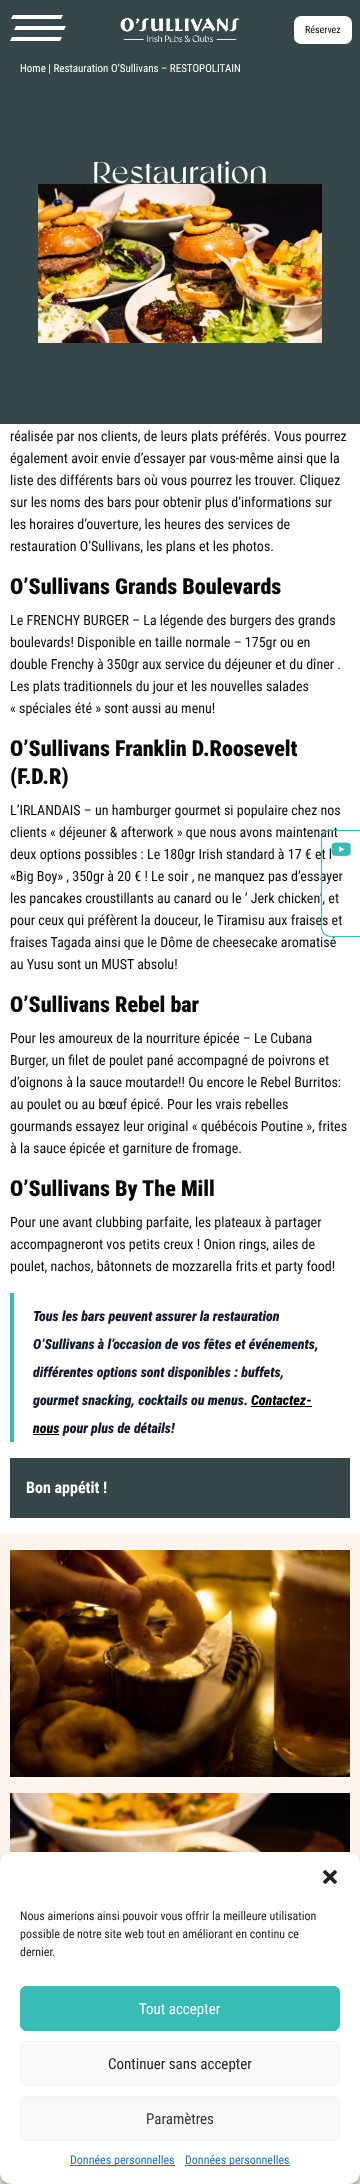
<svg xmlns="http://www.w3.org/2000/svg" xmlns:xlink="http://www.w3.org/1999/xlink" width="360" height="2184" viewBox="0 0 360 2184">
<style>
.cls-1{font:10px Roboto Condensed;fill:#000000}
.cls-2{font:11px Roboto Condensed;fill:#ffffff}
.cls-3{font:30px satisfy;fill:#ffffff}
.cls-4{font:14px Roboto Condensed;fill:#0a0a0a}
.cls-5{font:900 22px Roboto Condensed;fill:#0a0a0a}
.cls-6{font:italic 900 14px Roboto Condensed;fill:#12192f}
.cls-7{font:italic 900 14px Roboto Condensed;fill:#000000}
.cls-8{font:bold 16px Roboto Condensed;fill:#ffffff}
.cls-9{font:12px Roboto Condensed;fill:#222222}
.cls-10{font:15px Roboto Condensed;fill:#ffffff}
.cls-11{font:15px Roboto Condensed;fill:#222222}
.cls-12{font:15px Roboto Condensed;fill:#333333}
.cls-13{font:12px Roboto Condensed;fill:#1e73be}
</style>
<rect width="100%" height="100%" fill="#ffffff"/>
<rect fill="#364749" x="0" y="0" width="360" height="424"/>
<path fill="#ffffff" d="M12 37H62L60 41H10ZM16 26H66L64 30H14ZM13 15H63L61 19H11Z"/>
<image xlink:href="image0.png" x="120" y="17" width="120" height="26"/>
<rect fill="#ffffff" x="294" y="16" width="58" height="28" rx="7"/>
<image xlink:href="image1.png" x="38" y="184" width="284" height="159"/>
<rect fill="#35bdb6" x="10" y="1293" width="4" height="149"/>
<rect fill="#000000" x="251" y="1406" width="61" height="1"/>
<rect fill="#000000" x="33" y="1434" width="26" height="1"/>
<rect fill="#364749" x="10" y="1458" width="340" height="60"/>
<rect fill="#fdf5ed" x="0" y="1534" width="360" height="330"/>
<image xlink:href="image2.png" x="10" y="1550" width="340" height="227"/>
<image xlink:href="image3.png" x="10" y="1793" width="340" height="60"/>
<rect fill="#fdf5ed" x="0" y="2172" width="360" height="12"/>
<image xlink:href="image4.png" x="10" y="2183" width="340" height="1"/>
<rect fill="#000000" fill-opacity="0.23" filter="blur(3px)" x="0" y="1858" width="360" height="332" rx="12"/>
<rect fill="#000000" fill-opacity="0.19" filter="blur(10px)" x="0" y="1862" width="360" height="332" rx="12"/>
<rect fill="#ffffff" x="0" y="1852" width="360" height="332" rx="12"/>
<image xlink:href="image6.png" x="323" y="1870" width="14" height="14"/>
<rect fill="#35bdb6" stroke="#35bdb6" x="20.5" y="1986.5" width="319" height="44" rx="5.5"/>
<rect fill="#f9f9f9" stroke="#f2f2f2" x="20.5" y="2041.5" width="319" height="44" rx="5.5"/>
<rect fill="#f9f9f9" stroke="#f2f2f2" x="20.5" y="2096.5" width="319" height="44" rx="5.5"/>
<rect fill="#1e73be" x="70" y="2165" width="105" height="1"/>
<rect fill="#1e73be" x="185" y="2165" width="105" height="1"/>
<text class="cls-1" x="305" y="33">Réservez</text>
<text class="cls-2" x="20" y="72">Home | Restauration O’Sullivans – RESTOPOLITAIN</text>
<text class="cls-3" x="92" y="183">Restauration</text>
<text class="cls-4"><tspan x="10" y="441">réalisée par nos clients, de leurs plats préférés. Vous pourrez</tspan><tspan x="10" y="463">également avoir envie d’essayer par vous-même ainsi que la</tspan><tspan x="10" y="485">liste des différents bars où vous pourrez les trouver. Cliquez</tspan><tspan x="10" y="507">sur les noms des bars pour obtenir plus d’informations sur</tspan><tspan x="10" y="529">les horaires d’ouverture, les heures des services de</tspan><tspan x="10" y="551">restauration O’Sullivans, les plans et les photos.</tspan></text>
<text class="cls-5" x="10" y="594">O’Sullivans Grands Boulevards</text>
<text class="cls-4"><tspan x="10" y="625">Le FRENCHY BURGER – La légende des burgers des grands</tspan><tspan x="10" y="647">boulevards! Disponible en taille normale – 175gr ou en</tspan><tspan x="10" y="669">double Frenchy à 350gr aux service du déjeuner et du dîner .</tspan><tspan x="10" y="691">Les plats traditionnels du jour et les nouvelles salades</tspan><tspan x="10" y="713">« spéciales été » sont aussi au menu!</tspan></text>
<text class="cls-5"><tspan x="10" y="756">O’Sullivans Franklin D.Roosevelt</tspan><tspan x="10" y="784">(F.D.R)</tspan></text>
<text class="cls-4"><tspan x="10" y="815">L’IRLANDAIS – un hamburger gourmet si populaire chez nos</tspan><tspan x="10" y="837">clients « déjeuner &amp; afterwork » que nous avons maintenant</tspan><tspan x="10" y="859">deux options possibles : Le 180gr Irish standard à 17 € et l</tspan><tspan x="10" y="881">«Big Boy» , 350gr à 20 € ! Le soir , ne manquez pas d’essayer</tspan><tspan x="10" y="903">les pancakes croustillants au canard ou le ‘ Jerk chicken’, et</tspan><tspan x="10" y="925">pour ceux qui préfèrent la douceur, le Tiramisu aux fraises et</tspan><tspan x="10" y="947">fraises Tagada ainsi que le Dôme de cheesecake aromatisé</tspan><tspan x="10" y="969">au Yusu sont un MUST absolu!</tspan></text>
<text class="cls-5" x="10" y="1012">O’Sullivans Rebel bar</text>
<text class="cls-4"><tspan x="10" y="1043">Pour les amoureux de la nourriture épicée – Le Cubana</tspan><tspan x="10" y="1065">Burger, un filet de poulet pané accompagné de poivrons et</tspan><tspan x="10" y="1087">d’oignons à la sauce moutarde!! Ou encore le Rebel Burritos:</tspan><tspan x="10" y="1109">au poulet ou au bœuf épicé. Pour les vrais rebelles</tspan><tspan x="10" y="1131">gourmands essayez leur original « québécois Poutine », frites</tspan><tspan x="10" y="1153">à la sauce épicée et garniture de fromage.</tspan></text>
<text class="cls-5" x="10" y="1196">O’Sullivans By The Mill</text>
<text class="cls-4"><tspan x="10" y="1227">Pour une avant clubbing parfaite, les plateaux à partager</tspan><tspan x="10" y="1249">accompagneront vos petits creux ! Onion rings, ailes de</tspan><tspan x="10" y="1271">poulet, nachos, bâtonnets de mozzarella frits et party food!</tspan></text>
<text class="cls-6" x="33" y="1321">Tous les bars peuvent assurer la restauration</text>
<text class="cls-6" x="33" y="1349">O’Sullivans à l’occasion de vos fêtes et événements,</text>
<text class="cls-6" x="33" y="1377">différentes options sont disponibles : buffets,</text>
<text class="cls-6" x="33" y="1405">gourmet snacking, cocktails ou menus.</text>
<text class="cls-7" x="251" y="1405">Contactez-</text>
<text class="cls-7" x="33" y="1433">nous</text>
<text class="cls-6" x="63" y="1433">pour plus de détails!</text>
<text class="cls-8" x="26" y="1493">Bon appétit !</text>
<path fill="#35bdb6" fill-rule="evenodd" d="M331 830H360V937H331C325 937 321 933 321 927V840C321 834 325 830 331 830ZM331 831H360V936H331C326 936 322 932 322 927V840C322 835 326 831 331 831Z"/>
<image xlink:href="image5.png" x="331" y="842" width="20" height="14"/>
<text class="cls-9"><tspan x="20" y="1920">Nous aimerions ainsi pouvoir vous offrir la meilleure utilisation</tspan><tspan x="20" y="1938">possible de notre site web tout en améliorant en continu ce</tspan><tspan x="20" y="1956">dernier.</tspan></text>
<text class="cls-10" x="139" y="2014">Tout accepter</text>
<text class="cls-11" x="108" y="2069">Continuer sans accepter</text>
<text class="cls-12" x="146" y="2124">Paramètres</text>
<text class="cls-13" x="70" y="2164">Données personnelles</text>
<text class="cls-13" x="185" y="2164">Données personnelles</text>
</svg>
